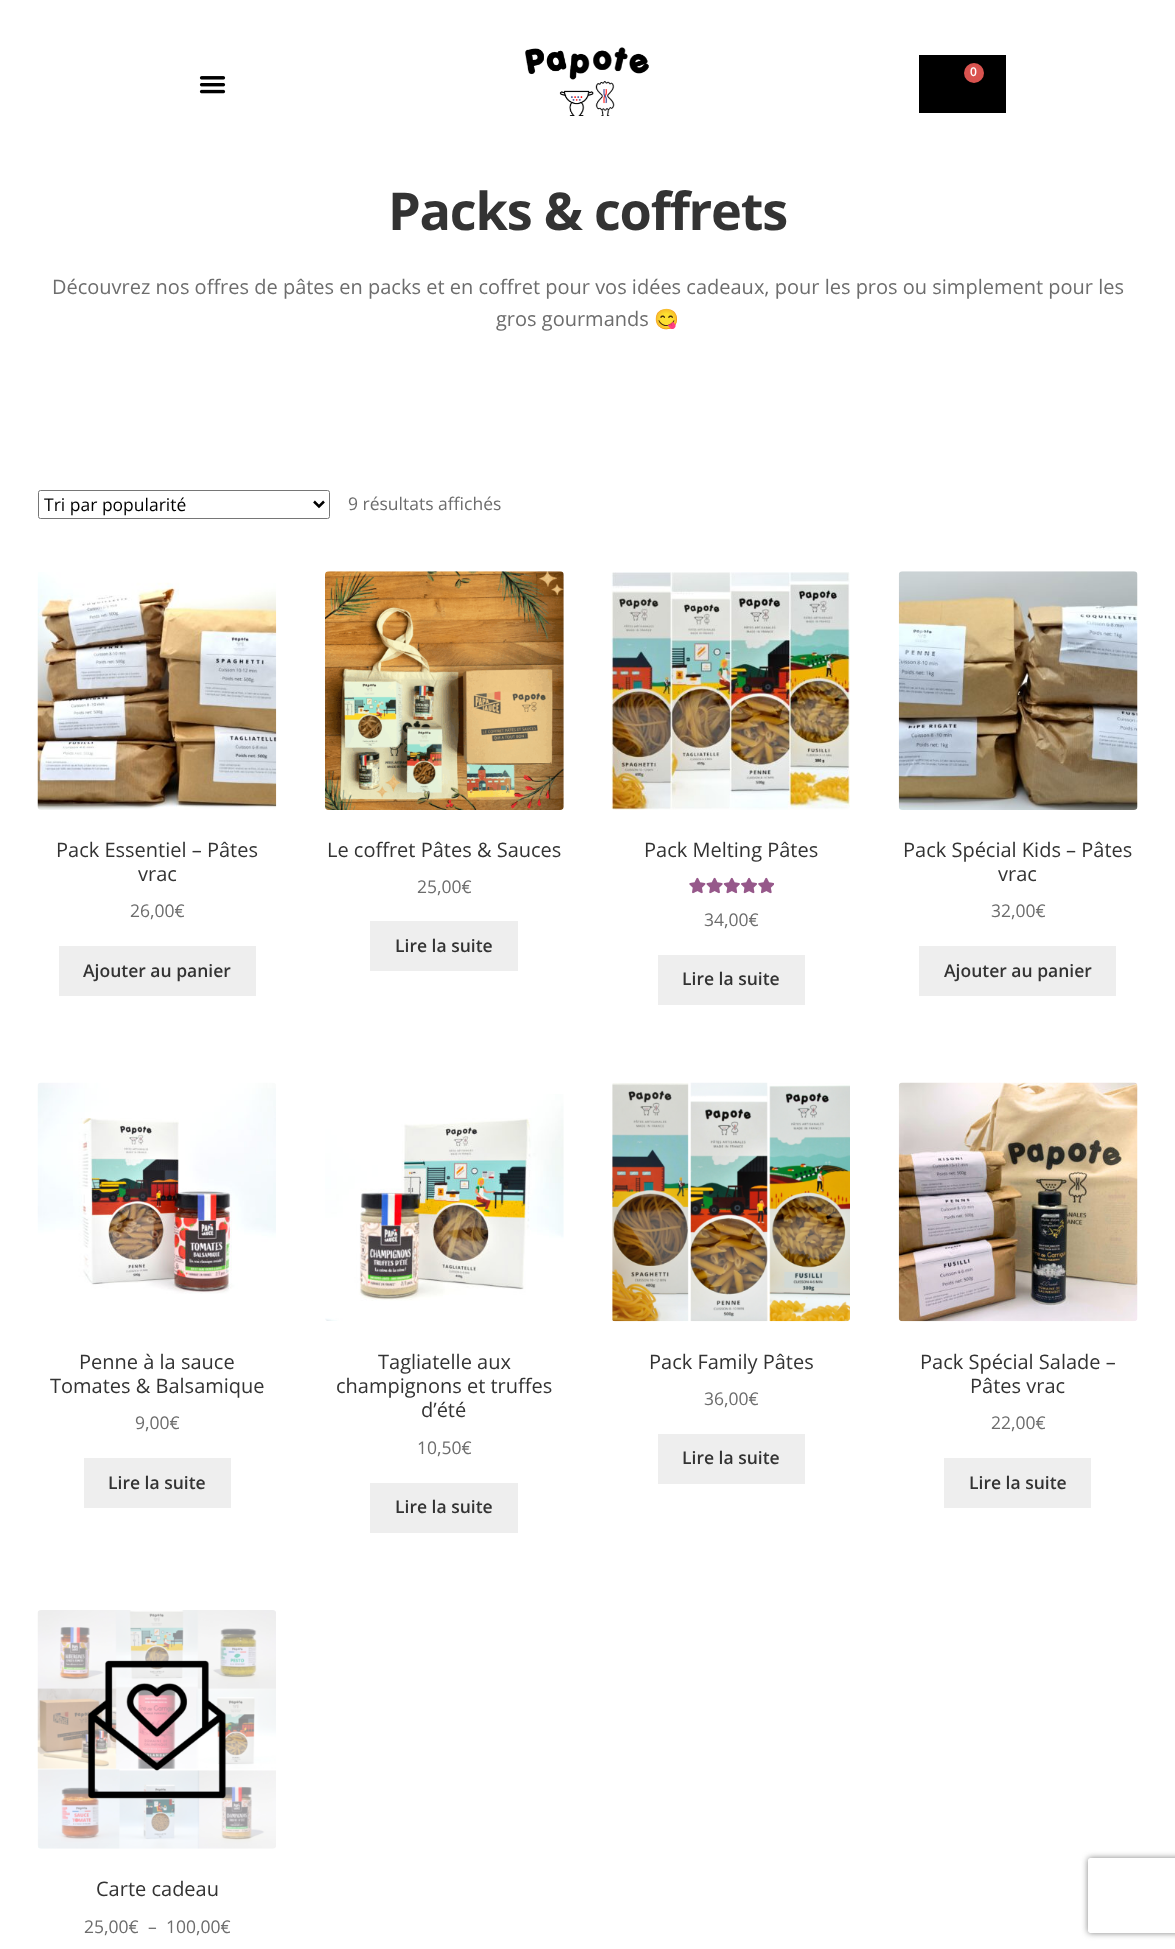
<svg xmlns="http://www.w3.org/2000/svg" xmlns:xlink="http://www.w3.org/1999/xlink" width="1175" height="1949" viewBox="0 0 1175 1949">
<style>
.cls-1{font:600 12px Open Sans;fill:#ffffff}
.cls-2{font:bold 52.25px Open Sans;letter-spacing:-1.25px;fill:#333333}
.cls-3{font:20px Open Sans;fill:#6d6d6d}
.cls-4{font:20px Noto Color Emoji;fill:#6d6d6d}
.cls-5{font:17.5px Open Sans;fill:#000000}
.cls-6{font:17.5px Open Sans;fill:#6d6d6d}
.cls-7{font:20px Open Sans;fill:#333333}
.cls-8{font:600 17.5px Open Sans;fill:#333333}
</style>
<defs>
<clipPath id="clip1"><path d="M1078 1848H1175V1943H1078ZM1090.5 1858H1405.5C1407 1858 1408 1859 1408 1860.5V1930.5C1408 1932 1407 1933 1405.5 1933H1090.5C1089 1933 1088 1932 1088 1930.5V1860.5C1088 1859 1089 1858 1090.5 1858Z" clip-rule="evenodd"/></clipPath>
</defs>
<rect width="100%" height="100%" fill="#ffffff"/>
<image xlink:href="image0.png" x="525" y="47" width="124" height="69"/>
<rect fill="#000000" x="919" y="55" width="87" height="58"/>
<circle fill="#d9534f" cx="974" cy="73" r="10"/>
<image xlink:href="image1.png" x="199" y="76" width="27" height="18"/>
<rect fill="none" stroke="#767676" x="38.5" y="490.5" width="291" height="28" rx="2"/>
<path fill="none" stroke="#000000" stroke-width="2.5" d="M314 501.5L319 506.5L324 501.5"/>
<image xlink:href="image2.png" x="37" y="572" width="240" height="238"/>
<rect fill="#eeeeee" x="59" y="946" width="197" height="50"/>
<image xlink:href="image3.png" x="325" y="571" width="239" height="239"/>
<rect fill="#eeeeee" x="370" y="921" width="148" height="50"/>
<image xlink:href="image4.png" x="611" y="572" width="239" height="238"/>
<image xlink:href="image6.png" x="689" y="878" width="85" height="15"/>
<image xlink:href="image5.png" x="689" y="877" width="85" height="17"/>
<rect fill="#eeeeee" x="658" y="955" width="147" height="50"/>
<image xlink:href="image7.png" x="898" y="571" width="240" height="239"/>
<rect fill="#eeeeee" x="919" y="946" width="197" height="50"/>
<image xlink:href="image8.png" x="37" y="1082" width="239" height="212"/>
<rect fill="#eeeeee" x="84" y="1458" width="147" height="50"/>
<image xlink:href="image9.png" x="325" y="1094" width="239" height="227"/>
<rect fill="#eeeeee" x="370" y="1483" width="148" height="50"/>
<image xlink:href="image10.png" x="612" y="1082" width="238" height="240"/>
<rect fill="#eeeeee" x="658" y="1434" width="147" height="50"/>
<image xlink:href="image11.png" x="898" y="1082" width="240" height="240"/>
<rect fill="#eeeeee" x="944" y="1458" width="147" height="50"/>
<image xlink:href="image12.png" x="37" y="1610" width="239" height="239"/>
<g clip-path="url(#clip1)">
<rect fill="#808080" filter="blur(3px)" x="1088" y="1858" width="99" height="75" rx="2.5"/>
</g>
<text class="cls-1" x="970" y="76">0</text>
<text class="cls-2" x="388" y="230">Packs &amp; coffrets</text>
<text class="cls-3" x="52" y="294">Découvrez nos offres de pâtes en packs et en coffret pour vos idées cadeaux, pour les pros ou simplement pour les</text>
<text class="cls-3" x="496" y="326">gros gourmands</text>
<text class="cls-4" x="654" y="326">😋</text>
<text class="cls-5" x="44" y="511">Tri par popularité</text>
<text class="cls-6" x="348" y="510">9 résultats affichés</text>
<text class="cls-7" x="56" y="857">Pack Essentiel – Pâtes</text>
<text class="cls-7" x="138" y="881">vrac</text>
<text class="cls-6" x="130" y="917">26,00€</text>
<text class="cls-8" x="83" y="977">Ajouter au panier</text>
<text class="cls-7" x="327" y="857">Le coffret Pâtes &amp; Sauces</text>
<text class="cls-6" x="417" y="893">25,00€</text>
<text class="cls-8" x="395" y="952">Lire la suite</text>
<text class="cls-7" x="644" y="857">Pack Melting Pâtes</text>
<text class="cls-6" x="704" y="926">34,00€</text>
<text class="cls-8" x="682" y="985">Lire la suite</text>
<text class="cls-7" x="903" y="857">Pack Spécial Kids – Pâtes</text>
<text class="cls-7" x="998" y="881">vrac</text>
<text class="cls-6" x="991" y="917">32,00€</text>
<text class="cls-8" x="944" y="977">Ajouter au panier</text>
<text class="cls-7" x="79" y="1369">Penne à la sauce</text>
<text class="cls-7" x="50" y="1393">Tomates &amp; Balsamique</text>
<text class="cls-6" x="135" y="1429">9,00€</text>
<text class="cls-8" x="108" y="1489">Lire la suite</text>
<text class="cls-7" x="378" y="1369">Tagliatelle aux</text>
<text class="cls-7" x="336" y="1393">champignons et truffes</text>
<text class="cls-7" x="421" y="1417">d’été</text>
<text class="cls-6" x="417" y="1454">10,50€</text>
<text class="cls-8" x="395" y="1513">Lire la suite</text>
<text class="cls-7" x="649" y="1369">Pack Family Pâtes</text>
<text class="cls-6" x="704" y="1405">36,00€</text>
<text class="cls-8" x="682" y="1464">Lire la suite</text>
<text class="cls-7" x="920" y="1369">Pack Spécial Salade –</text>
<text class="cls-7" x="970" y="1393">Pâtes vrac</text>
<text class="cls-6" x="991" y="1429">22,00€</text>
<text class="cls-8" x="969" y="1489">Lire la suite</text>
<text class="cls-7" x="96" y="1896">Carte cadeau</text>
<text class="cls-6" x="84" y="1933">25,00€</text>
<text class="cls-6" x="148" y="1933">–</text>
<text class="cls-6" x="166" y="1933">100,00€</text>
</svg>
